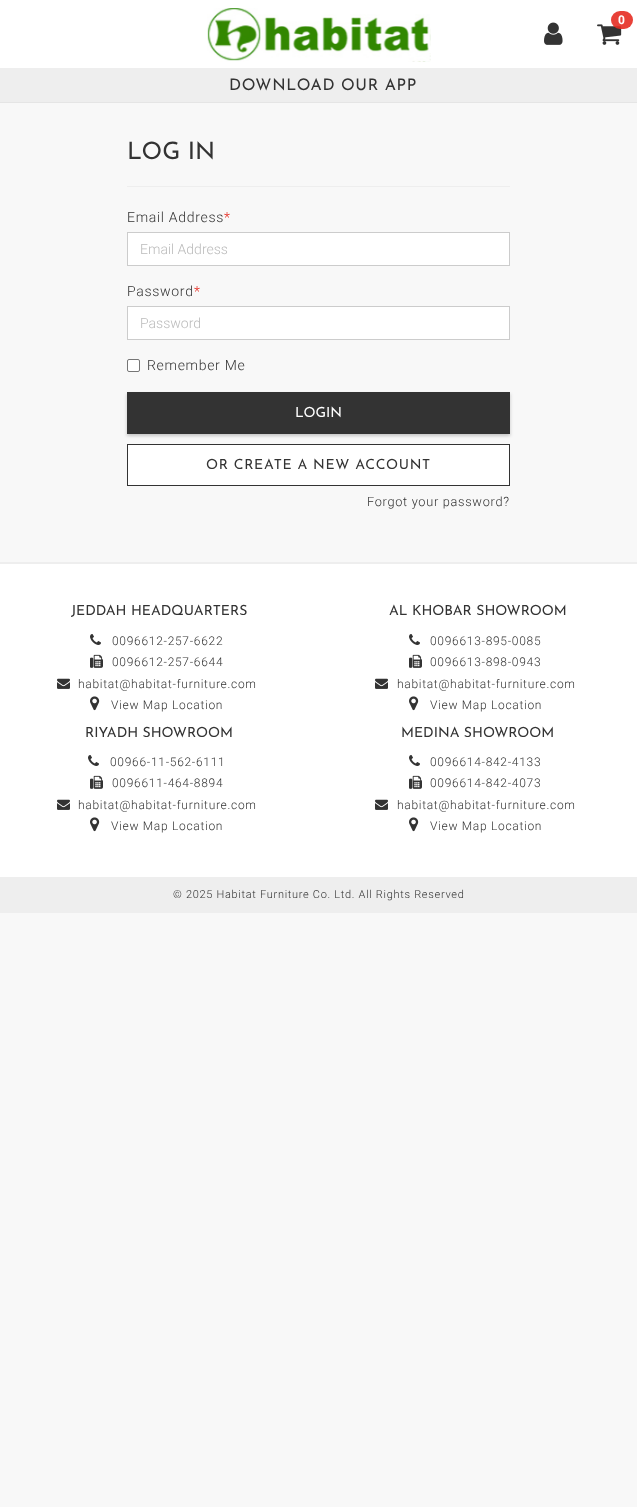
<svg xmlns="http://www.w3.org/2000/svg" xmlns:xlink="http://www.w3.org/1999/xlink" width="637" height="1507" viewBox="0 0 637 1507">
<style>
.cls-1{font:bold 12px Roboto;letter-spacing:0.7px;fill:#ffffff}
.cls-2{font:16px Josefin Sans;letter-spacing:0.7px;fill:#333333}
.cls-3{font:24px Josefin Sans;fill:#333333}
.cls-4{font:300 14px Roboto;letter-spacing:0.7px;fill:#333333}
.cls-5{font:300 14px Roboto;letter-spacing:0.7px;fill:#e62c22}
.cls-6{font:300 14px Roboto;fill:#bbbbbb}
.cls-7{font:14px Josefin Sans;fill:#ffffff}
.cls-8{font:14px Josefin Sans;letter-spacing:0.7px;fill:#333333}
.cls-9{font:300 12.75px Roboto;letter-spacing:0.7px;fill:#333333}
.cls-10{font:14px Josefin Sans;fill:#333333}
.cls-11{font:300 12px Roboto;letter-spacing:0.7px;fill:#333333}
.cls-12{font:300 11px Roboto;letter-spacing:0.7px;fill:#333333}
</style>
<rect width="100%" height="100%" fill="#f8f8f8"/>
<rect fill="#ffffff" x="0" y="0" width="637" height="68"/>
<image xlink:href="image0.png" x="207" y="8" width="224" height="54"/>
<image xlink:href="image1.png" x="597" y="24" width="25" height="21"/>
<rect fill="#e62c22" fill-opacity="0.9" x="611" y="11" width="22" height="18" rx="9"/>
<image xlink:href="image2.png" x="544" y="22" width="19" height="23"/>
<rect fill="#eeeeee" x="0" y="68" width="637" height="34"/>
<rect fill="#e5e5e5" x="0" y="102" width="637" height="1"/>
<rect fill="#eeeeee" x="127" y="186" width="383" height="1"/>
<rect fill="#ffffff" stroke="#cccccc" x="127.5" y="232.5" width="382" height="33"/>
<rect fill="#ffffff" stroke="#cccccc" x="127.5" y="306.5" width="382" height="33"/>
<rect fill="#ffffff" stroke="#767676" x="127.5" y="359.5" width="12" height="12" rx="1.5"/>
<rect fill="#000000" fill-opacity="0.1" filter="blur(1.5px)" x="128" y="394" width="383" height="42"/>
<rect fill="#000000" fill-opacity="0.1" filter="blur(1.5px)" x="126" y="394" width="383" height="42"/>
<rect fill="#333333" x="127" y="392" width="383" height="42"/>
<rect fill="#ffffff" stroke="#333333" x="127.5" y="444.5" width="382" height="41"/>
<rect fill="#eeeeee" x="0" y="562" width="637" height="2"/>
<rect fill="#ffffff" x="0" y="564" width="637" height="313"/>
<image xlink:href="image3.png" x="90" y="634" width="11" height="11"/>
<image xlink:href="image4.png" x="90" y="654" width="13" height="14"/>
<image xlink:href="image5.png" x="57" y="678" width="13" height="11"/>
<image xlink:href="image6.png" x="90" y="696" width="10" height="15"/>
<image xlink:href="image3.png" x="88" y="755" width="11" height="11"/>
<image xlink:href="image4.png" x="90" y="775" width="13" height="14"/>
<image xlink:href="image5.png" x="57" y="799" width="13" height="11"/>
<image xlink:href="image6.png" x="90" y="817" width="10" height="15"/>
<image xlink:href="image3.png" x="409" y="634" width="11" height="11"/>
<image xlink:href="image4.png" x="409" y="654" width="13" height="14"/>
<image xlink:href="image5.png" x="375" y="678" width="13" height="11"/>
<image xlink:href="image6.png" x="409" y="696" width="10" height="15"/>
<image xlink:href="image3.png" x="409" y="755" width="11" height="11"/>
<image xlink:href="image4.png" x="409" y="775" width="13" height="14"/>
<image xlink:href="image5.png" x="375" y="799" width="13" height="11"/>
<image xlink:href="image6.png" x="409" y="817" width="10" height="15"/>
<rect fill="#eeeeee" x="0" y="877" width="637" height="36"/>
<text class="cls-1" x="618" y="24">0</text>
<text class="cls-2" x="229" y="90">DOWNLOAD OUR APP</text>
<text class="cls-3" x="127" y="159">LOG IN</text>
<text class="cls-4" x="127" y="222">Email Address</text>
<text class="cls-5" x="224" y="222">*</text>
<text class="cls-6" x="140" y="254">Email Address</text>
<text class="cls-4" x="127" y="296">Password</text>
<text class="cls-5" x="194" y="296">*</text>
<text class="cls-6" x="140" y="328">Password</text>
<text class="cls-4" x="147" y="370">Remember Me</text>
<text class="cls-7" x="295" y="417">LOGIN</text>
<text class="cls-8" x="206" y="469">OR CREATE A NEW ACCOUNT</text>
<text class="cls-9" x="367" y="506">Forgot your password?</text>
<text class="cls-10" x="71" y="615">JEDDAH HEADQUARTERS</text>
<text class="cls-11"><tspan x="112" y="645">0096612-257-6622</tspan><tspan x="112" y="666">0096612-257-6644</tspan></text>
<text class="cls-11" x="78" y="688">habitat@habitat-furniture.com</text>
<text class="cls-11" x="111" y="709">View Map Location</text>
<text class="cls-10" x="85" y="737">RIYADH SHOWROOM</text>
<text class="cls-11" x="110" y="766">00966-11-562-6111</text>
<text class="cls-11" x="112" y="787">0096611-464-8894</text>
<text class="cls-11" x="78" y="809">habitat@habitat-furniture.com</text>
<text class="cls-11" x="111" y="830">View Map Location</text>
<text class="cls-10" x="389" y="615">AL KHOBAR SHOWROOM</text>
<text class="cls-11"><tspan x="430" y="645">0096613-895-0085</tspan><tspan x="430" y="666">0096613-898-0943</tspan></text>
<text class="cls-11" x="397" y="688">habitat@habitat-furniture.com</text>
<text class="cls-11" x="430" y="709">View Map Location</text>
<text class="cls-10" x="401" y="737">MEDINA SHOWROOM</text>
<text class="cls-11"><tspan x="430" y="766">0096614-842-4133</tspan><tspan x="430" y="787">0096614-842-4073</tspan></text>
<text class="cls-11" x="397" y="809">habitat@habitat-furniture.com</text>
<text class="cls-11" x="430" y="830">View Map Location</text>
<text class="cls-12" x="173" y="898">© 2025 Habitat Furniture Co. Ltd. All Rights Reserved</text>
</svg>
